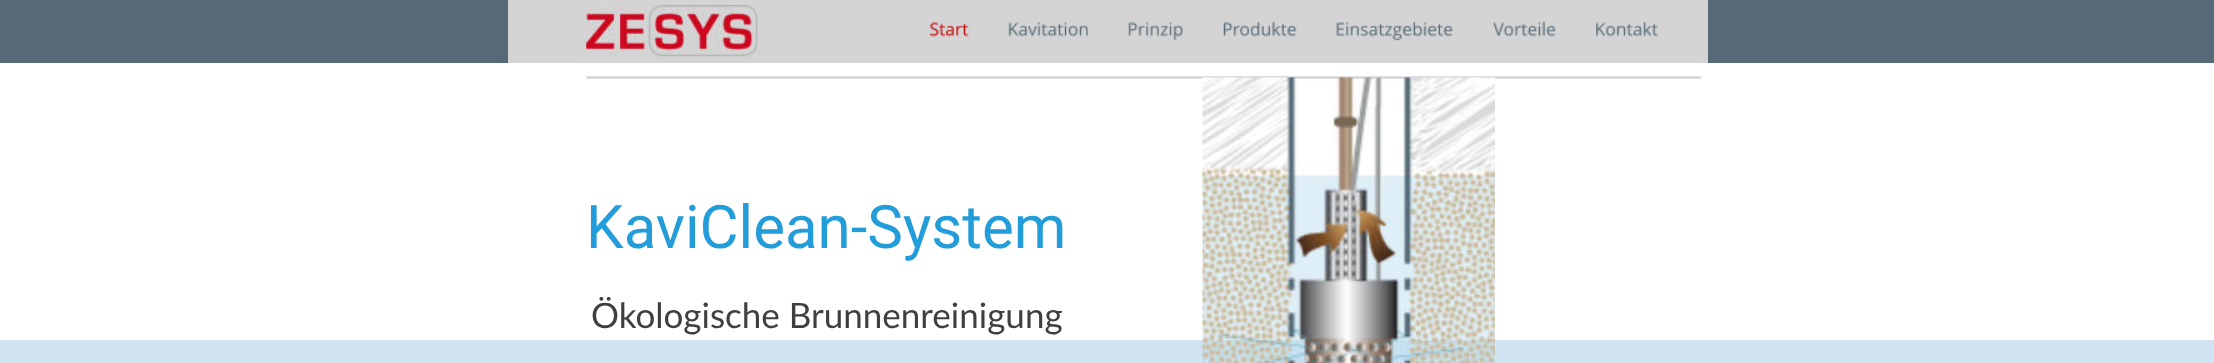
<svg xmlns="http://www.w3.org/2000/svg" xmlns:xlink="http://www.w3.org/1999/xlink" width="2214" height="363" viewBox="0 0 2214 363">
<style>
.cls-1{font:60px Roboto;fill:#229dd9}
.cls-2{font:35px Lato;fill:#3f3f3f}
</style>
<rect width="100%" height="100%" fill="#ffffff"/>
<rect fill="#556a76" x="0" y="0" width="2214" height="63"/>
<rect fill="#d4d4d4" x="508" y="0" width="1200" height="63"/>
<image xlink:href="image0.png" x="929" y="22" width="40" height="15"/>
<image xlink:href="image1.png" x="1008" y="22" width="81" height="15"/>
<image xlink:href="image2.png" x="1128" y="22" width="55" height="19"/>
<image xlink:href="image3.png" x="1223" y="21" width="74" height="16"/>
<image xlink:href="image4.png" x="1336" y="21" width="117" height="20"/>
<image xlink:href="image5.png" x="1492" y="21" width="64" height="16"/>
<image xlink:href="image6.png" x="1596" y="21" width="62" height="16"/>
<image xlink:href="image7.png" x="586" y="5" width="172" height="52"/>
<image xlink:href="image8.png" x="586" y="76" width="1116" height="3"/>
<rect fill="#cfe4f0" x="0" y="340" width="2214" height="23"/>
<image xlink:href="image9.png" x="1202" y="77" width="293" height="286"/>
<text class="cls-1" x="586" y="248">KaviClean-System</text>
<text class="cls-2" x="591" y="328">Ökologische Brunnenreinigung</text>
</svg>
